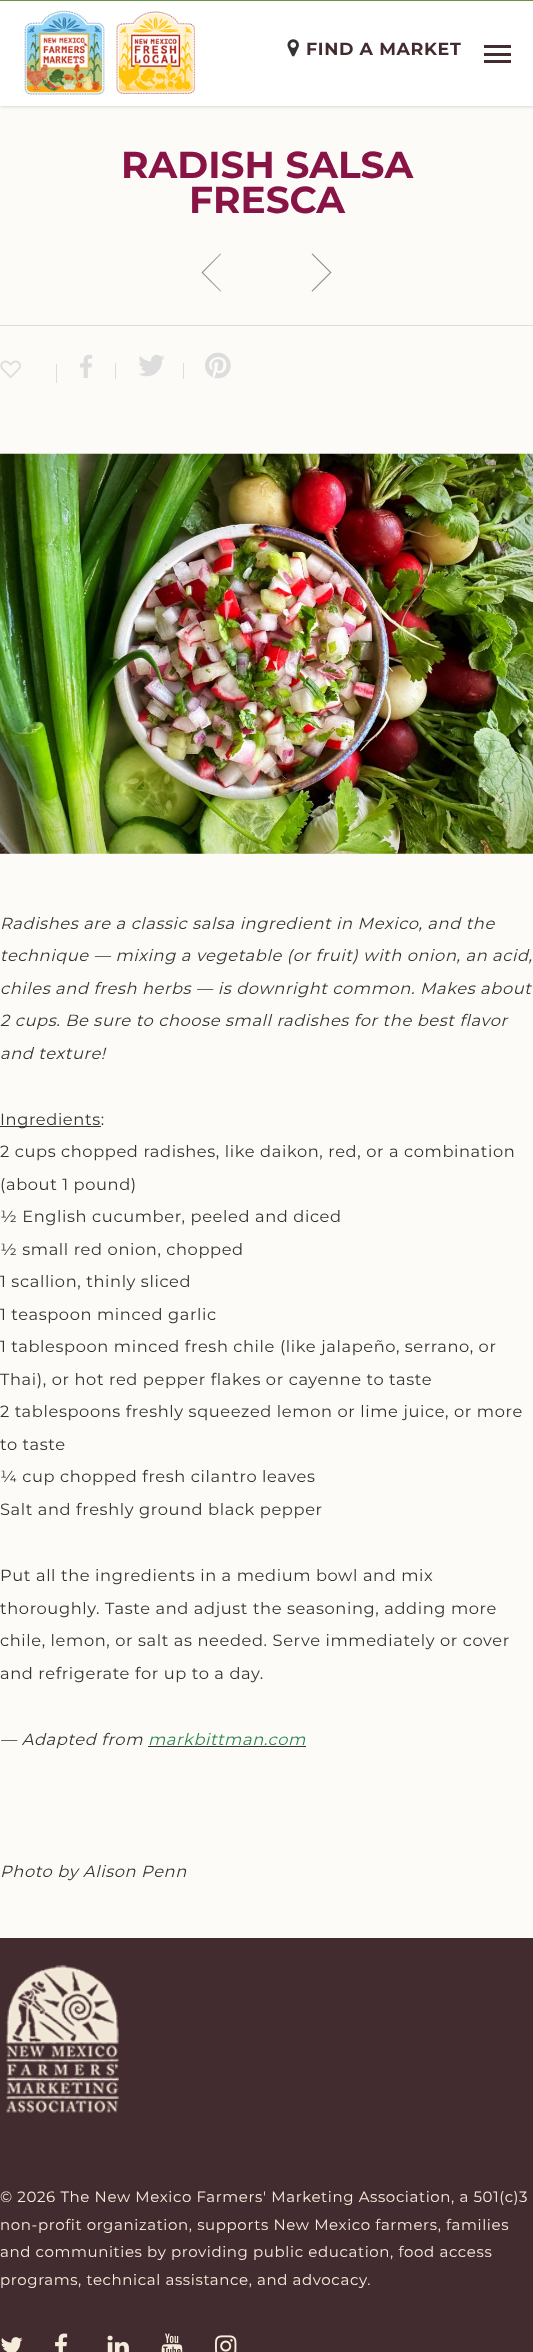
<svg xmlns="http://www.w3.org/2000/svg" xmlns:xlink="http://www.w3.org/1999/xlink" width="533" height="2352" viewBox="0 0 533 2352">
<style>
.cls-1{font:bold 17.5px Montserrat;letter-spacing:0.62px;fill:#432c2f}
.cls-2{font:bold 37.5px Montserrat;fill:#881345}
.cls-3{font:italic 16.25px Montserrat;letter-spacing:0.62px;fill:#333333}
.cls-4{font:16.25px Montserrat;letter-spacing:0.62px;fill:#333333}
.cls-5{font:italic 16.25px Montserrat;letter-spacing:0.62px;fill:#2d844b}
.cls-6{font:15px Montserrat;letter-spacing:0.62px;fill:#f6ecdc}
</style>
<rect width="100%" height="100%" fill="#fdfbf8"/>
<rect fill="#000000" fill-opacity="0.22" filter="blur(2px)" x="0" y="1" width="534" height="105"/>
<rect fill="#669544" x="0" y="0" width="533" height="1"/>
<rect fill="#ffffff" x="0" y="1" width="533" height="105"/>
<image xlink:href="image0.png" x="24" y="10" width="171" height="85"/>
<image xlink:href="image1.png" x="287" y="39" width="12" height="18"/>
<rect fill="#432c2f" x="484" y="45" width="27" height="3"/>
<rect fill="#432c2f" x="484" y="60" width="27" height="3"/>
<rect fill="#432c2f" x="484" y="53" width="27" height="3"/>
<rect fill="#dddddd" x="0" y="325" width="533" height="1"/>
<path fill="#888888" d="M221 254L220.5 253.5L201.5 272.5L220.5 291.5L221 291L203 272.5Z"/>
<path fill="#888888" d="M311.5 254L312.5 253.5L331.5 272.5L312.5 291.5L311.5 291L330 272.5Z"/>
<rect fill="#dddddd" x="56" y="364" width="1" height="19"/>
<image xlink:href="image2.png" x="0" y="360" width="21" height="19"/>
<image xlink:href="image3.png" x="80" y="354" width="13" height="24"/>
<rect fill="#dddddd" x="115" y="363" width="1" height="16"/>
<image xlink:href="image4.png" x="139" y="354" width="26" height="23"/>
<rect fill="#dddddd" x="183" y="363" width="1" height="16"/>
<image xlink:href="image5.png" x="205" y="352" width="26" height="27"/>
<image xlink:href="image6.png" x="0" y="453" width="533" height="401"/>
<rect fill="#333333" x="0" y="1126" width="101" height="1"/>
<rect fill="#333333" x="148" y="1746" width="158" height="1"/>
<rect fill="#432c2f" x="0" y="1938" width="533" height="414"/>
<image xlink:href="image7.png" x="6" y="1964" width="113" height="149"/>
<image xlink:href="image8.png" x="1" y="2337" width="22" height="15"/>
<image xlink:href="image9.png" x="55" y="2333" width="13" height="19"/>
<image xlink:href="image10.png" x="107" y="2335" width="22" height="17"/>
<image xlink:href="image11.png" x="161" y="2333" width="22" height="19"/>
<image xlink:href="image12.png" x="215" y="2335" width="22" height="17"/>
<text class="cls-1" x="306" y="55">FIND A MARKET</text>
<text class="cls-2" x="121" y="178">RADISH SALSA</text>
<text class="cls-2" x="189" y="213">FRESCA</text>
<text class="cls-3"><tspan x="0" y="929">Radishes are a classic salsa ingredient in Mexico, and the</tspan><tspan x="0" y="961">technique — mixing a vegetable (or fruit) with onion, an acid,</tspan></text>
<text class="cls-3"><tspan x="0" y="994">chiles and fresh herbs — is downright common. Makes about</tspan><tspan x="0" y="1026">2 cups. Be sure to choose small radishes for the best flavor</tspan></text>
<text class="cls-3" x="0" y="1059">and texture!</text>
<text class="cls-4"><tspan x="0" y="1125">Ingredients:</tspan><tspan x="0" y="1157">2 cups chopped radishes, like daikon, red, or a combination</tspan></text>
<text class="cls-4"><tspan x="0" y="1190">(about 1 pound)</tspan><tspan x="0" y="1222">½ English cucumber, peeled and diced</tspan></text>
<text class="cls-4"><tspan x="0" y="1255">½ small red onion, chopped</tspan><tspan x="0" y="1287">1 scallion, thinly sliced</tspan></text>
<text class="cls-4"><tspan x="0" y="1320">1 teaspoon minced garlic</tspan><tspan x="0" y="1352">1 tablespoon minced fresh chile (like jalapeño, serrano, or</tspan></text>
<text class="cls-4"><tspan x="0" y="1385">Thai), or hot red pepper flakes or cayenne to taste</tspan><tspan x="0" y="1417">2 tablespoons freshly squeezed lemon or lime juice, or more</tspan></text>
<text class="cls-4"><tspan x="0" y="1450">to taste</tspan><tspan x="0" y="1482">¼ cup chopped fresh cilantro leaves</tspan></text>
<text class="cls-4" x="0" y="1515">Salt and freshly ground black pepper</text>
<text class="cls-4" x="0" y="1581">Put all the ingredients in a medium bowl and mix</text>
<text class="cls-4"><tspan x="0" y="1614">thoroughly. Taste and adjust the seasoning, adding more</tspan><tspan x="0" y="1646">chile, lemon, or salt as needed. Serve immediately or cover</tspan></text>
<text class="cls-4" x="0" y="1679">and refrigerate for up to a day.</text>
<text class="cls-3" x="0" y="1745">— Adapted from</text>
<text class="cls-5" x="148" y="1745">markbittman.com</text>
<text class="cls-3" x="0" y="1877">Photo by Alison Penn</text>
<text class="cls-6"><tspan x="0" y="2202">© 2026 The New Mexico Farmers' Marketing Association, a 501(c)3</tspan><tspan x="0" y="2230">non-profit organization, supports New Mexico farmers, families</tspan><tspan x="0" y="2257">and communities by providing public education, food access</tspan><tspan x="0" y="2285">programs, technical assistance, and advocacy.</tspan></text>
</svg>
